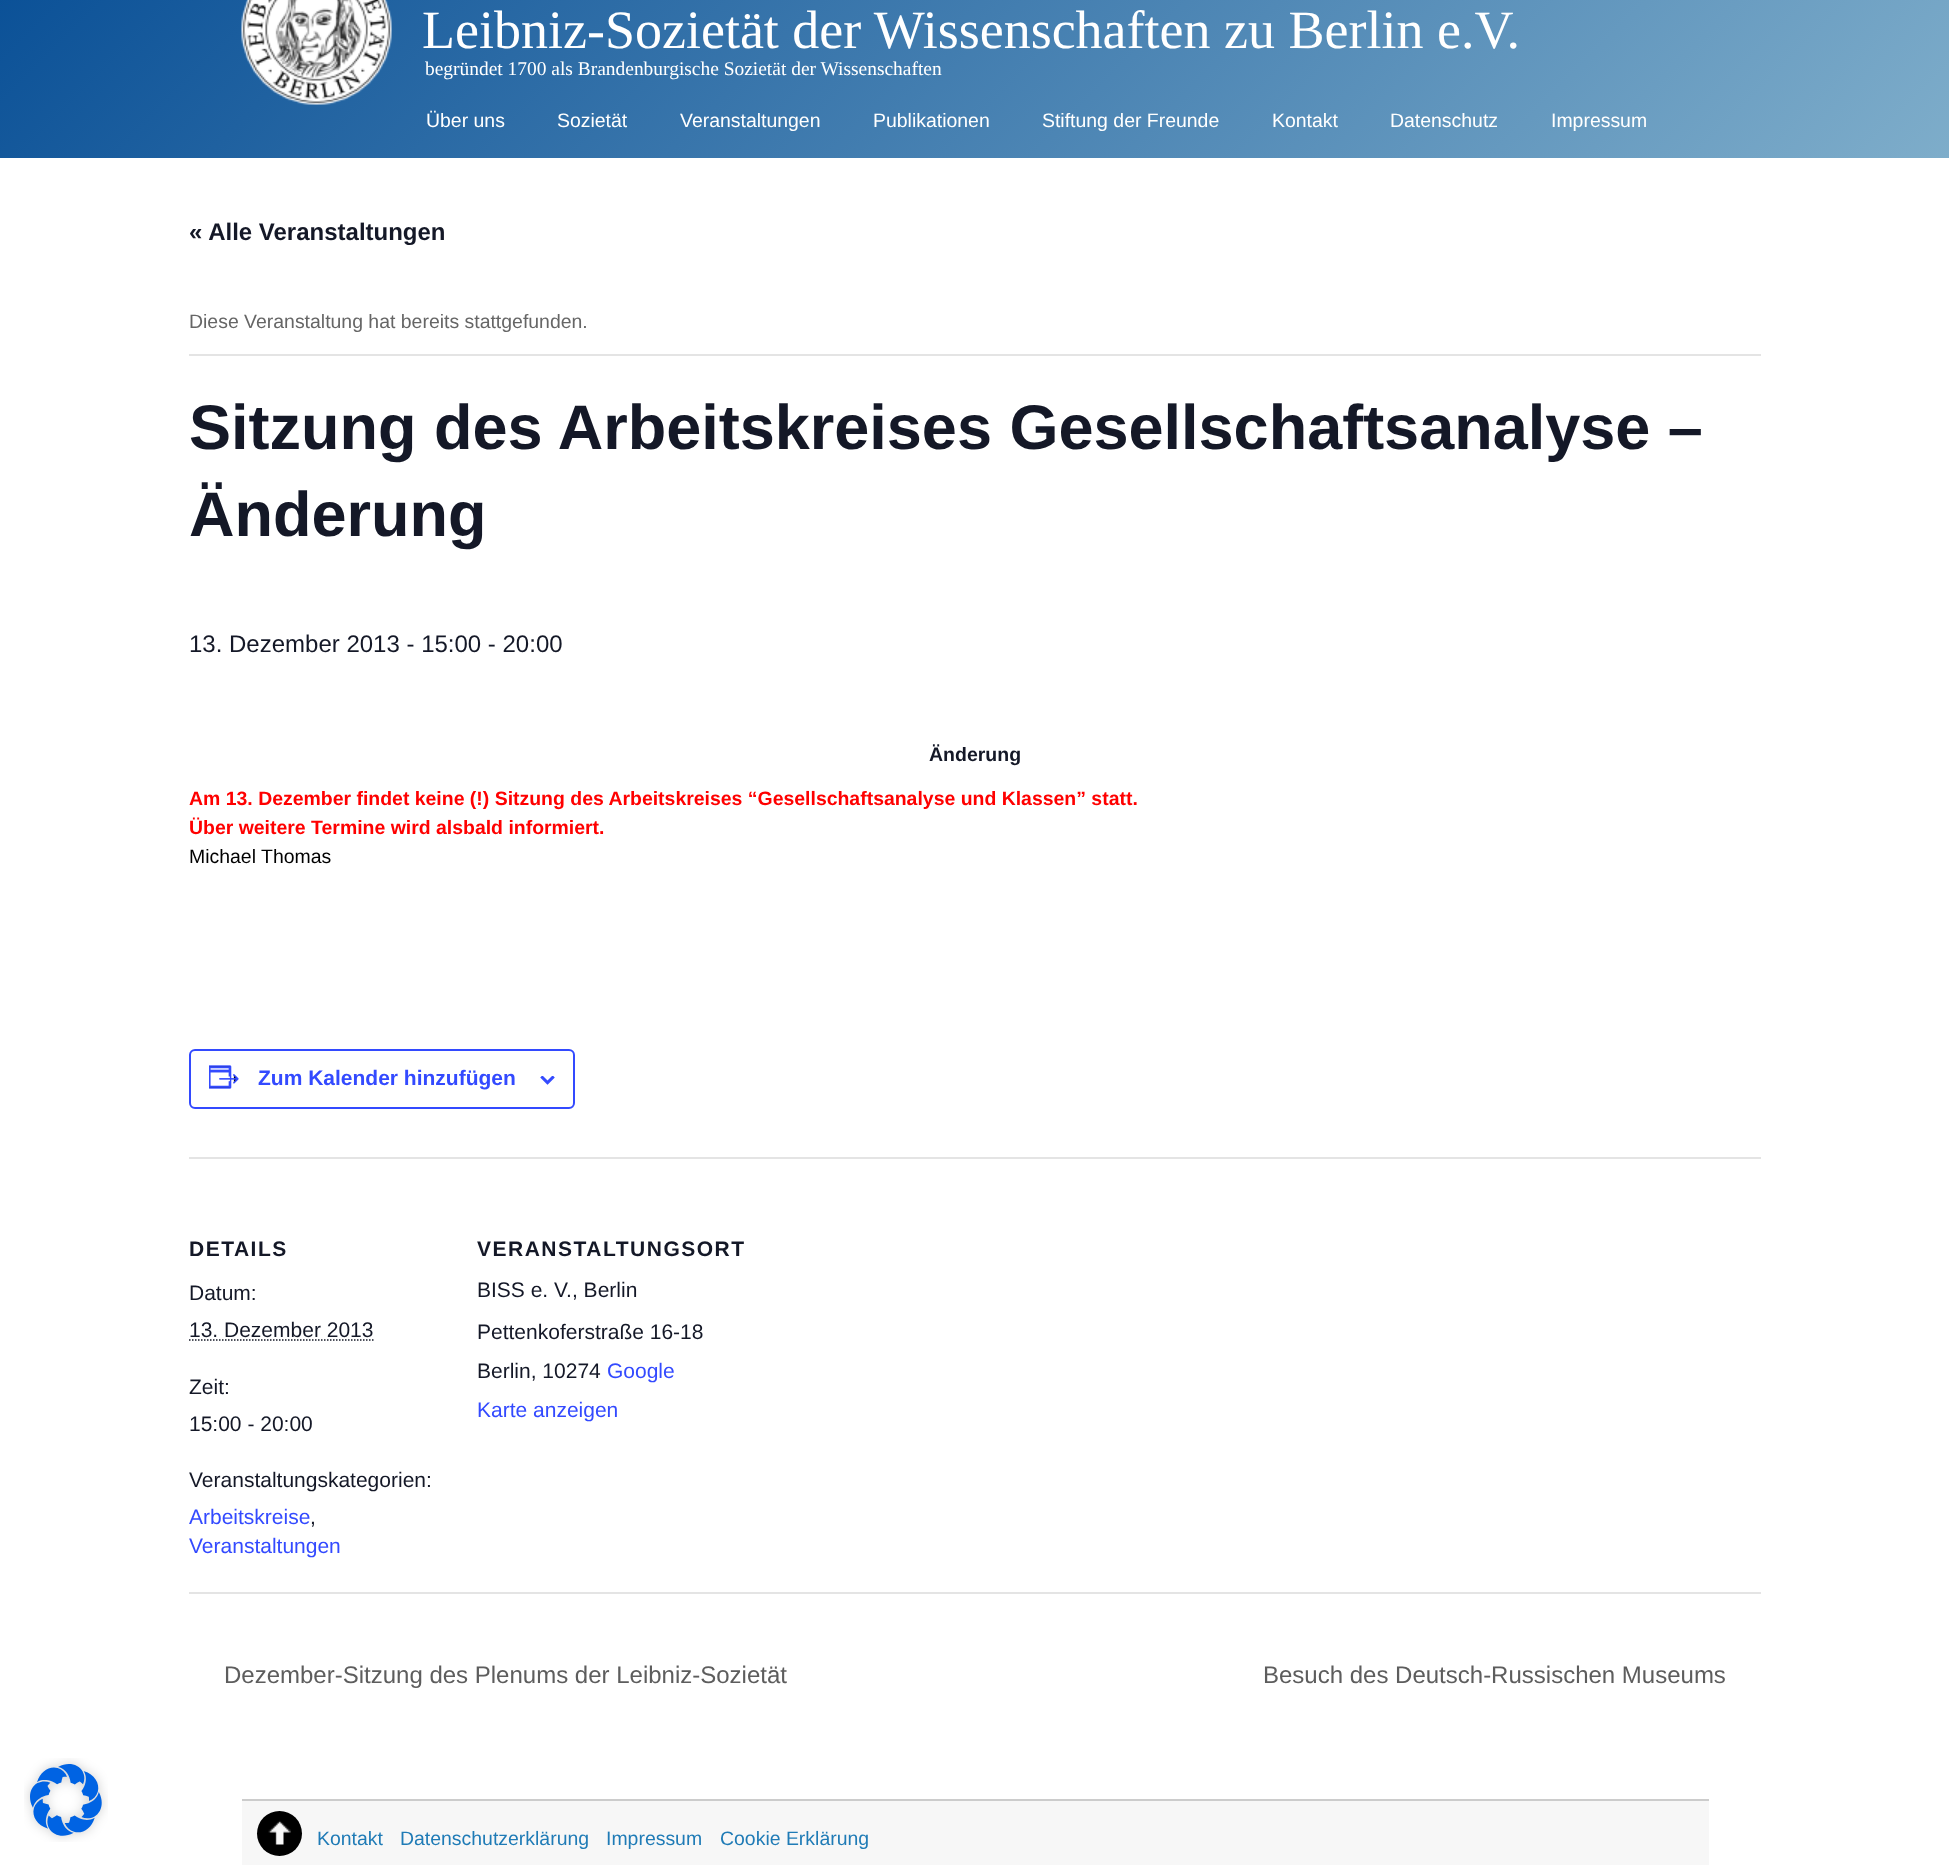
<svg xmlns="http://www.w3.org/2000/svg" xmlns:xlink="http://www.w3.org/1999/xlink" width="1949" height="1865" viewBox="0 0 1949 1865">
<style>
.cls-1{font:54px Liberation Serif;fill:#ffffff}
.cls-2{font:19.45px Liberation Serif;fill:#ffffff}
.cls-3{font:19.45px Liberation Sans;fill:#ffffff}
.cls-4{font:bold 24px Liberation Sans;fill:#141827}
.cls-5{font:19.45px Liberation Sans;fill:#666666}
.cls-6{font:bold 63px Liberation Sans;fill:#141827}
.cls-7{font:24px Liberation Sans;fill:#141827}
.cls-8{font:bold 19.5px Liberation Sans;fill:#141827}
.cls-9{font:bold 19.45px Liberation Sans;fill:#ff0000}
.cls-10{font:19.45px Liberation Sans;fill:#000000}
.cls-11{font:bold 21px Liberation Sans;fill:#334aff}
.cls-12{font:bold 21px Liberation Sans;letter-spacing:1.5px;fill:#141827}
.cls-13{font:21px Liberation Sans;fill:#141827}
.cls-14{font:21px Liberation Sans;fill:#334aff}
.cls-15{font:24px Liberation Sans;fill:#5d5d5d}
.cls-16{font:19.45px Liberation Sans;fill:#1f7bb6}
</style>
<defs>
<linearGradient id="g1" gradientUnits="userSpaceOnUse" x1="424" y1="-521" x2="1526" y2="581"><stop offset="0" stop-color="#064d95"/><stop offset="1" stop-color="#7eadca"/></linearGradient>
</defs>
<rect width="100%" height="100%" fill="#ffffff"/>
<image xlink:href="image0.png" x="24" y="1758" width="84" height="84"/>
<rect fill="url(#g1)" x="0" y="0" width="1949" height="158"/>
<image xlink:href="image1.png" x="241" y="0" width="151" height="105"/>
<rect fill="#e4e4e4" x="189" y="354" width="1572" height="2"/>
<rect fill="none" stroke="#334aff" stroke-width="2" x="190" y="1050" width="384" height="58" rx="5"/>
<image xlink:href="image2.png" x="209" y="1065" width="30" height="24"/>
<image xlink:href="image3.png" x="540" y="1076" width="15" height="9"/>
<rect fill="#e4e4e4" x="189" y="1157" width="1572" height="2"/>
<path fill="none" stroke="#141827" stroke-width="1.5" stroke-dasharray="1.5 1.5" d="M189 1340H373.5"/>
<rect fill="#e4e4e4" x="189" y="1592" width="1572" height="2"/>
<rect fill="#f7f7f7" x="242" y="1801" width="1467" height="64"/>
<rect fill="#cccccc" x="242" y="1799" width="1467" height="2"/>
<circle fill="#000000" cx="279.5" cy="1833.5" r="22.5"/>
<image xlink:href="image4.png" x="268" y="1820" width="23" height="25"/>
<text class="cls-1" x="422" y="48">Leibniz-Sozietät der Wissenschaften zu Berlin e.V.</text>
<text class="cls-2" x="425" y="75">begründet 1700 als Brandenburgische Sozietät der Wissenschaften</text>
<text class="cls-3" x="426" y="127">Über uns</text>
<text class="cls-3" x="557" y="127">Sozietät</text>
<text class="cls-3" x="680" y="127">Veranstaltungen</text>
<text class="cls-3" x="873" y="127">Publikationen</text>
<text class="cls-3" x="1042" y="127">Stiftung der Freunde</text>
<text class="cls-3" x="1272" y="127">Kontakt</text>
<text class="cls-3" x="1390" y="127">Datenschutz</text>
<text class="cls-3" x="1551" y="127">Impressum</text>
<text class="cls-4" x="189" y="240">« Alle Veranstaltungen</text>
<text class="cls-5" x="189" y="328">Diese Veranstaltung hat bereits stattgefunden.</text>
<text class="cls-6"><tspan x="189" y="449">Sitzung des Arbeitskreises Gesellschaftsanalyse –</tspan><tspan x="189" y="536">Änderung</tspan></text>
<text class="cls-7" x="189" y="652">13. Dezember 2013 - 15:00 - 20:00</text>
<text class="cls-8" x="929" y="761">Änderung</text>
<text class="cls-9"><tspan x="189" y="805">Am 13. Dezember findet keine (!) Sitzung des Arbeitskreises “Gesellschaftsanalyse und Klassen” statt.</tspan><tspan x="189" y="834">Über weitere Termine wird alsbald informiert.</tspan></text>
<text class="cls-10" x="189" y="863">Michael Thomas</text>
<text class="cls-11" x="258" y="1085">Zum Kalender hinzufügen</text>
<text class="cls-12" x="189" y="1256">DETAILS</text>
<text class="cls-13"><tspan x="189" y="1300">Datum:</tspan><tspan x="189" y="1337">13. Dezember 2013</tspan></text>
<text class="cls-13"><tspan x="189" y="1394">Zeit:</tspan><tspan x="189" y="1431">15:00 - 20:00</tspan></text>
<text class="cls-13" x="189" y="1487">Veranstaltungskategorien:</text>
<text class="cls-14" x="189" y="1524">Arbeitskreise</text>
<text class="cls-13" x="310" y="1524">,</text>
<text class="cls-14" x="189" y="1553">Veranstaltungen</text>
<text class="cls-12" x="477" y="1256">VERANSTALTUNGSORT</text>
<text class="cls-13" x="477" y="1297">BISS e. V., Berlin</text>
<text class="cls-13"><tspan x="477" y="1339">Pettenkoferstraße 16-18</tspan><tspan x="477" y="1378">Berlin, 10274</tspan></text>
<text class="cls-14" x="607" y="1378">Google</text>
<text class="cls-14" x="477" y="1417">Karte anzeigen</text>
<text class="cls-15" x="224" y="1683">Dezember-Sitzung des Plenums der Leibniz-Sozietät</text>
<text class="cls-15" x="1263" y="1683">Besuch des Deutsch-Russischen Museums</text>
<text class="cls-16" x="317" y="1845">Kontakt</text>
<text class="cls-16" x="400" y="1845">Datenschutzerklärung</text>
<text class="cls-16" x="606" y="1845">Impressum</text>
<text class="cls-16" x="720" y="1845">Cookie Erklärung</text>
</svg>
